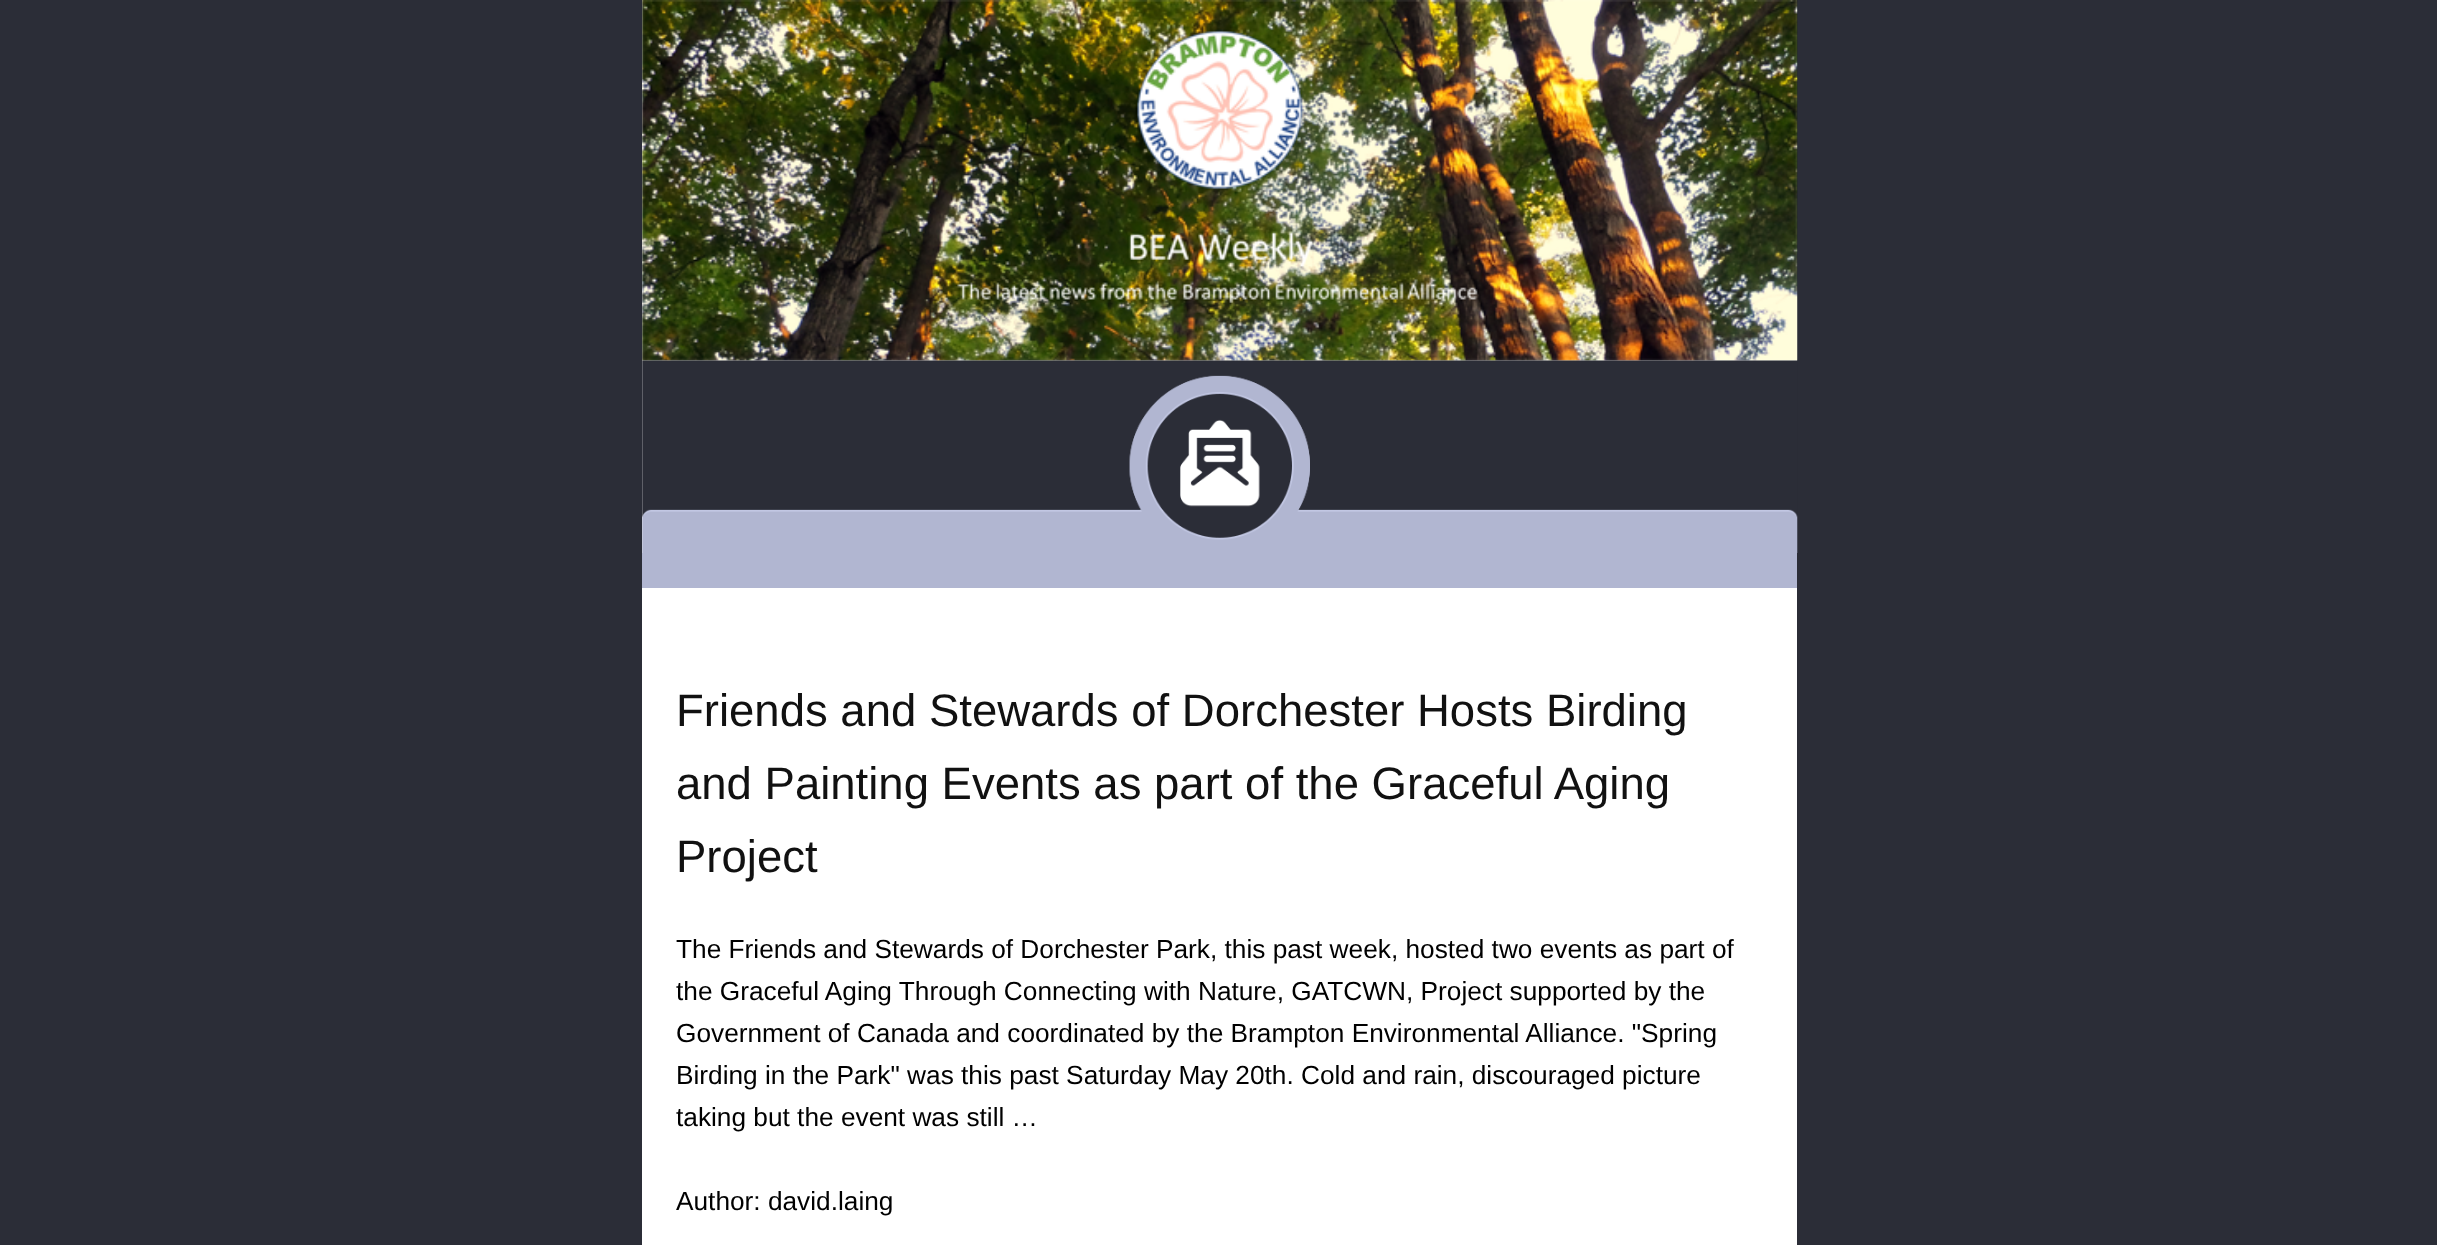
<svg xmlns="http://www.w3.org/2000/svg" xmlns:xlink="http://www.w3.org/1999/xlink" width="2437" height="1245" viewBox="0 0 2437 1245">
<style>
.cls-1{font:45.5px Liberation Sans;fill:#111111}
.cls-2{font:26.25px Liberation Sans;fill:#000000}
</style>
<rect width="100%" height="100%" fill="#2b2d37"/>
<rect fill="#ffffff" x="642" y="0" width="1155" height="1245"/>
<image xlink:href="image0.png" x="642" y="0" width="1156" height="361"/>
<image xlink:href="image1.png" x="642" y="360" width="1156" height="193"/>
<rect fill="#b1b6d1" x="642" y="553" width="1155" height="35"/>
<text class="cls-1"><tspan x="676" y="726">Friends and Stewards of Dorchester Hosts Birding</tspan><tspan x="676" y="799">and Painting Events as part of the Graceful Aging</tspan><tspan x="676" y="872">Project</tspan></text>
<text class="cls-2"><tspan x="676" y="958">The Friends and Stewards of Dorchester Park, this past week, hosted two events as part of</tspan><tspan x="676" y="1000">the Graceful Aging Through Connecting with Nature, GATCWN, Project supported by the</tspan><tspan x="676" y="1042">Government of Canada and coordinated by the Brampton Environmental Alliance. "Spring</tspan><tspan x="676" y="1084">Birding in the Park" was this past Saturday May 20th. Cold and rain, discouraged picture</tspan><tspan x="676" y="1126">taking but the event was still …</tspan></text>
<text class="cls-2" x="676" y="1210">Author: david.laing</text>
</svg>
